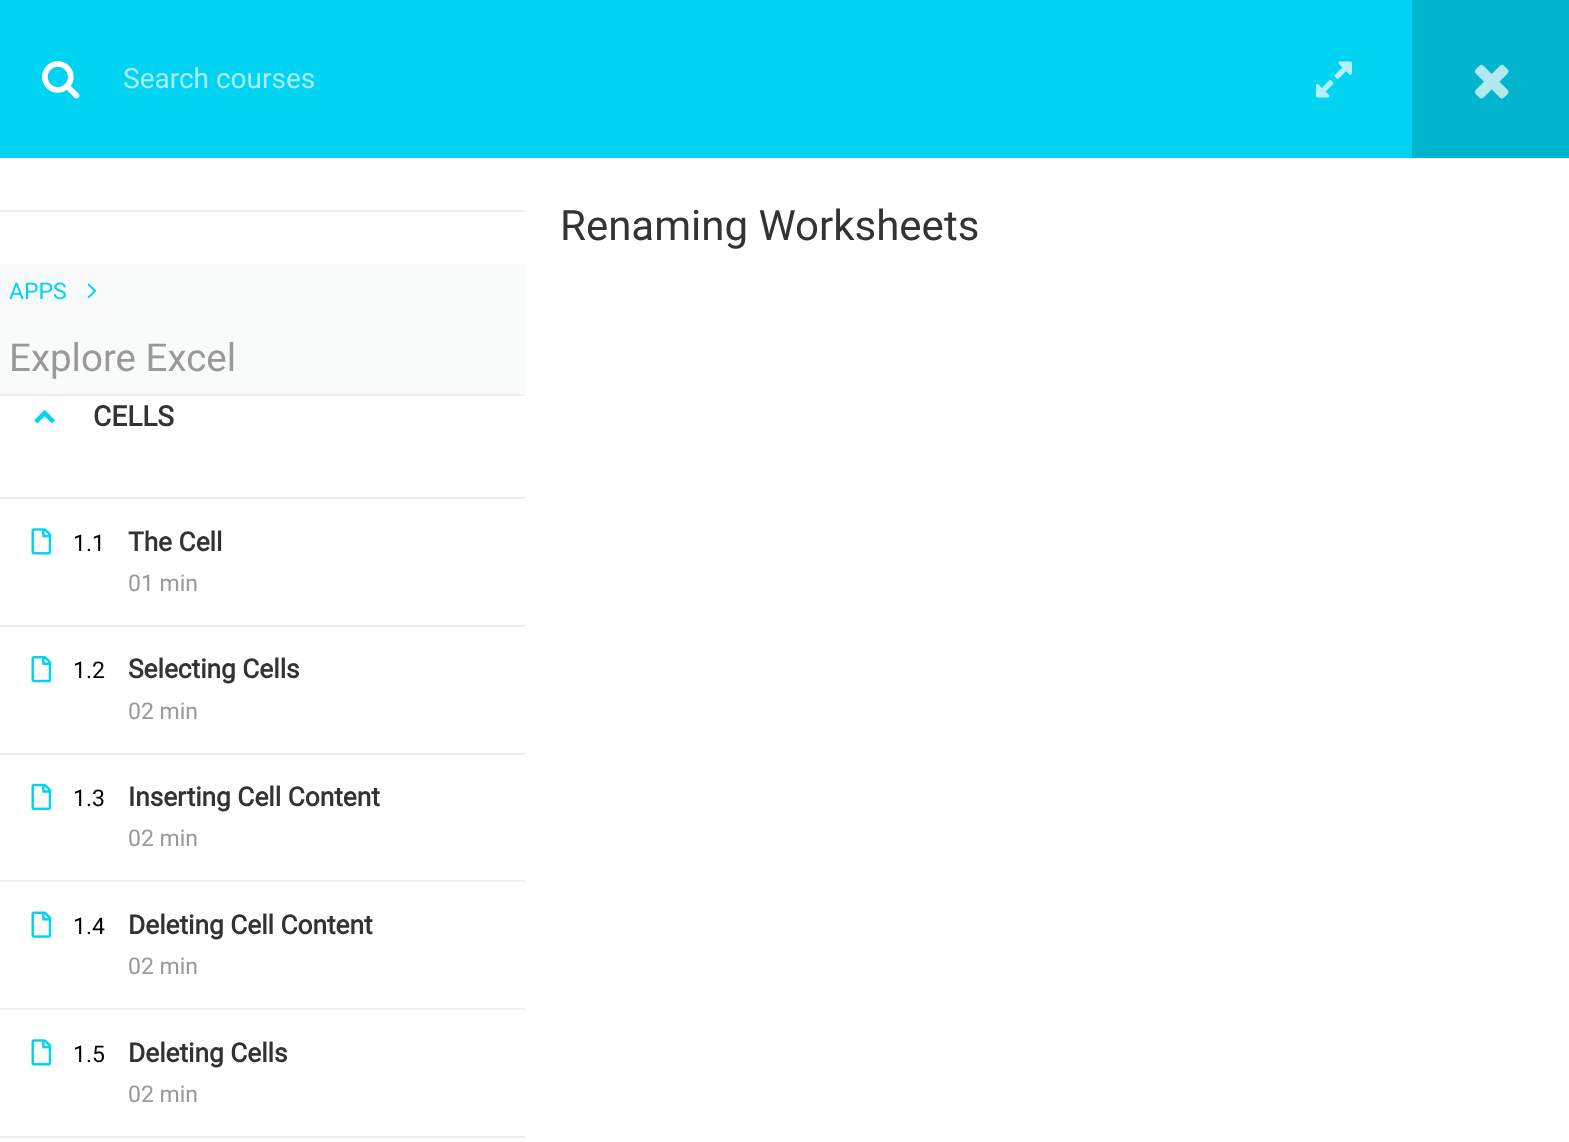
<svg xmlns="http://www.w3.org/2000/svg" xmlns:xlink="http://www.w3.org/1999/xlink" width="1569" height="1142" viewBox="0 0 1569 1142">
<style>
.cls-1{font:28px Roboto;fill:#a6f0fb}
.cls-2{font:42px Roboto;fill:#333333}
.cls-3{font:23px Roboto;fill:#01d3f3}
.cls-4{font:38.5px Roboto;fill:#999999}
.cls-5{font:bold 28px Roboto;fill:#333333}
.cls-6{font:23px Roboto;fill:#000000}
.cls-7{font:bold 26.25px Roboto;fill:#333333}
.cls-8{font:23px Roboto;fill:#999999}
</style>
<rect width="100%" height="100%" fill="#ffffff"/>
<rect fill="#01d3f3" x="0" y="0" width="1412" height="158"/>
<image xlink:href="image0.png" x="42" y="61" width="38" height="38"/>
<image xlink:href="image1.png" x="1316" y="61" width="36" height="37"/>
<rect fill="#02b5ce" x="1412" y="0" width="157" height="158"/>
<image xlink:href="image2.png" x="1474" y="64" width="35" height="35"/>
<rect fill="#eeeeee" x="0" y="210" width="525" height="2"/>
<rect fill="#f9fafa" x="0" y="264" width="525" height="130"/>
<image xlink:href="image3.png" x="87" y="283" width="10" height="16"/>
<rect fill="#eeeeee" x="0" y="394" width="525" height="2"/>
<image xlink:href="image4.png" x="34" y="410" width="21" height="14"/>
<rect fill="#eeeeee" x="0" y="497" width="525" height="2"/>
<image xlink:href="image5.png" x="31" y="528" width="21" height="27"/>
<rect fill="#eeeeee" x="0" y="625" width="525" height="2"/>
<image xlink:href="image6.png" x="31" y="656" width="21" height="27"/>
<rect fill="#eeeeee" x="0" y="753" width="525" height="2"/>
<image xlink:href="image7.png" x="31" y="783" width="21" height="27"/>
<rect fill="#eeeeee" x="0" y="880" width="525" height="2"/>
<image xlink:href="image8.png" x="31" y="911" width="21" height="27"/>
<rect fill="#eeeeee" x="0" y="1008" width="525" height="2"/>
<image xlink:href="image5.png" x="31" y="1039" width="21" height="27"/>
<rect fill="#eeeeee" x="0" y="1136" width="525" height="2"/>
<text class="cls-1" x="123" y="88">Search courses</text>
<text class="cls-2" x="560" y="240">Renaming Worksheets</text>
<text class="cls-3" x="9" y="299">APPS</text>
<text class="cls-4" x="9" y="371">Explore Excel</text>
<text class="cls-5" x="93" y="426">CELLS</text>
<text class="cls-6" x="73" y="551">1.1</text>
<text class="cls-7" x="128" y="551">The Cell</text>
<text class="cls-8" x="128" y="591">01 min</text>
<text class="cls-6" x="73" y="678">1.2</text>
<text class="cls-7" x="128" y="678">Selecting Cells</text>
<text class="cls-8" x="128" y="719">02 min</text>
<text class="cls-6" x="73" y="806">1.3</text>
<text class="cls-7" x="128" y="806">Inserting Cell Content</text>
<text class="cls-8" x="128" y="846">02 min</text>
<text class="cls-6" x="73" y="934">1.4</text>
<text class="cls-7" x="128" y="934">Deleting Cell Content</text>
<text class="cls-8" x="128" y="974">02 min</text>
<text class="cls-6" x="73" y="1062">1.5</text>
<text class="cls-7" x="128" y="1062">Deleting Cells</text>
<text class="cls-8" x="128" y="1102">02 min</text>
</svg>
